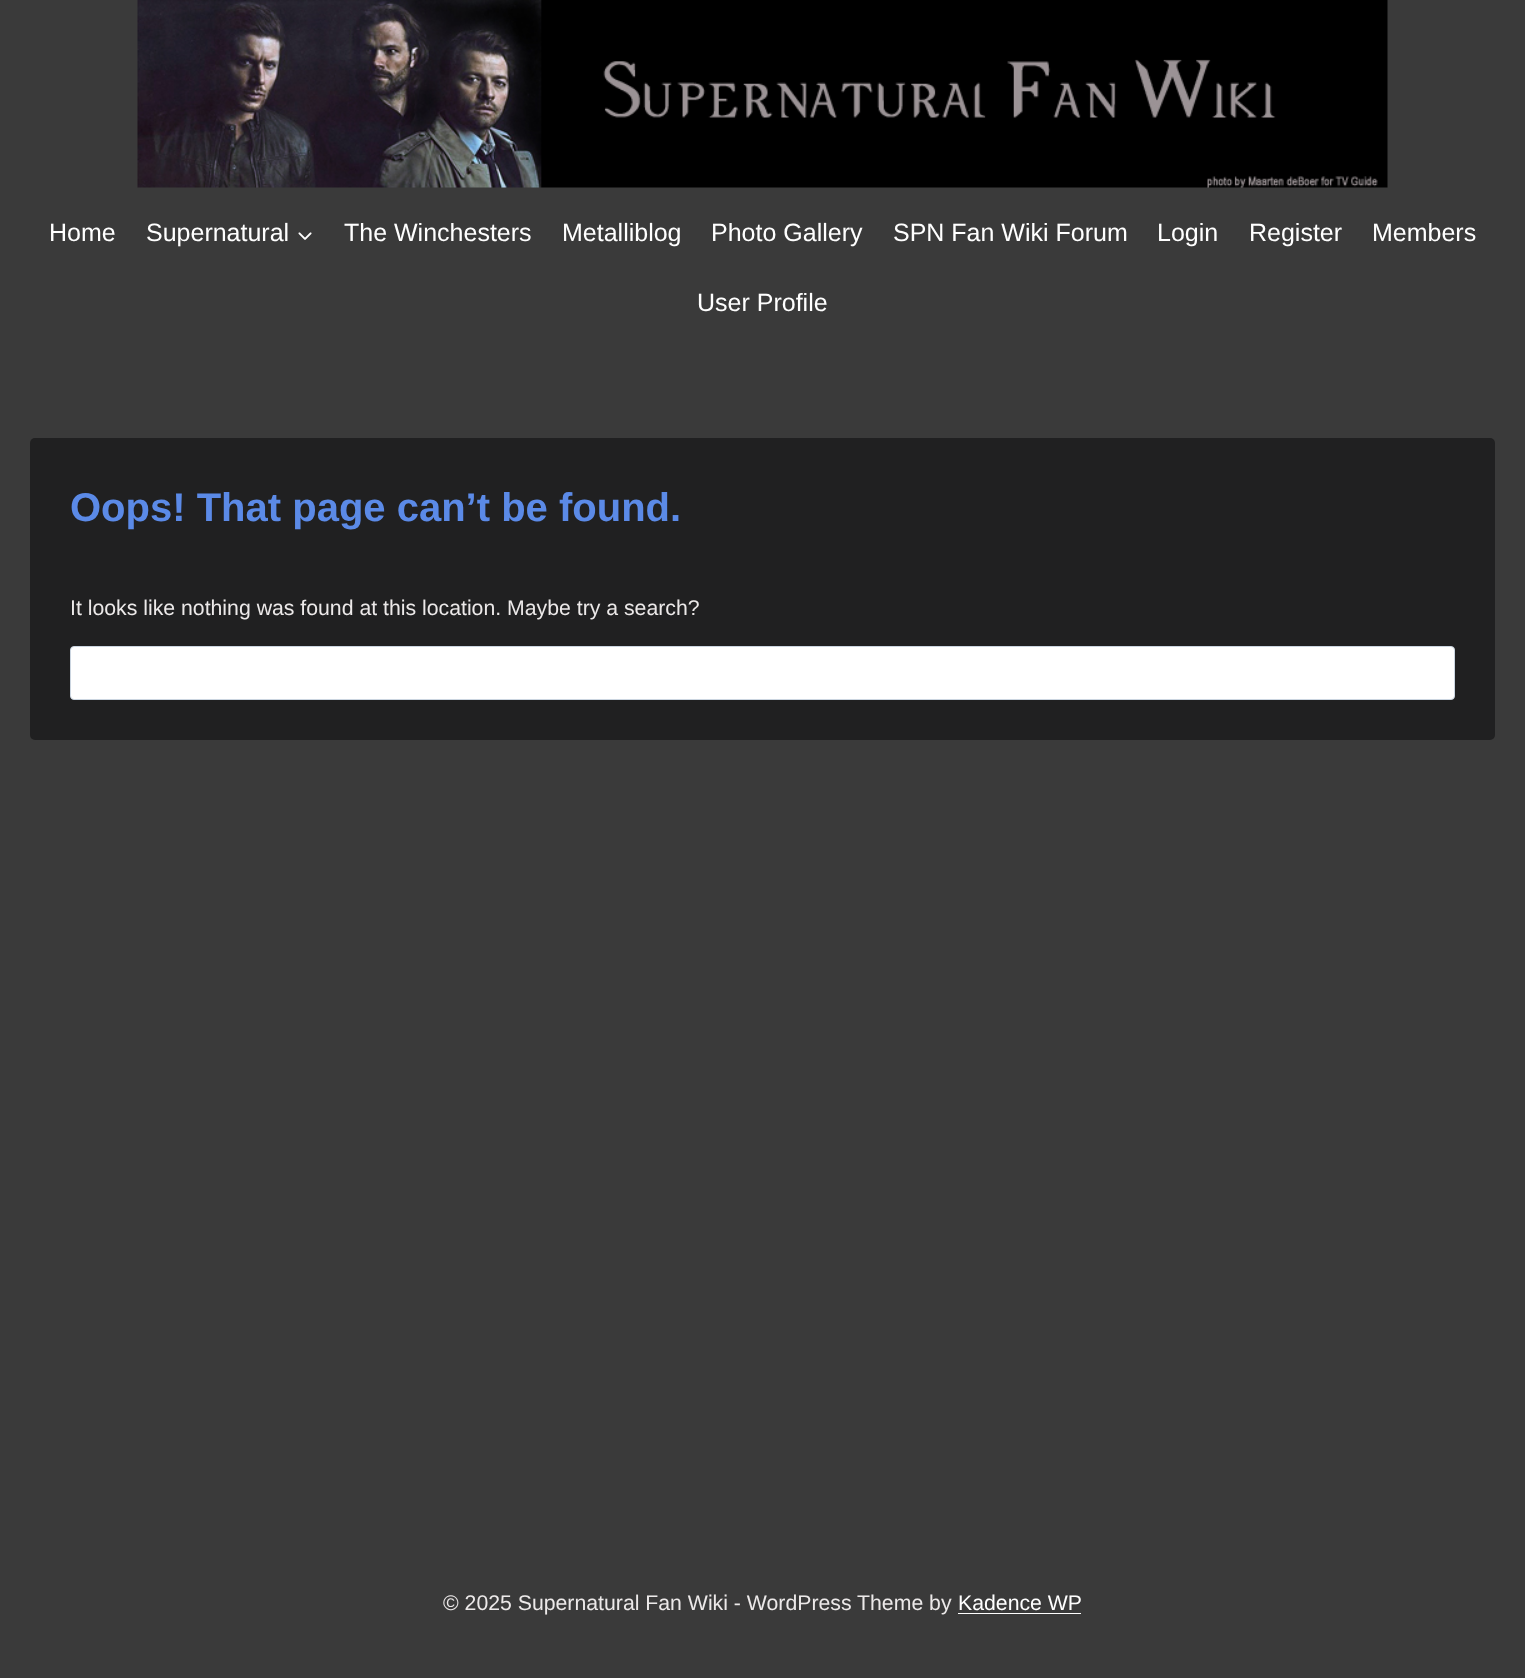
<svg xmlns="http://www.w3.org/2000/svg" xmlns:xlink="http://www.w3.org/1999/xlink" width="1525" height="1678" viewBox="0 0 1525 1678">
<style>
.cls-1{font:25px Liberation Sans;fill:#ffffff}
.cls-2{font:bold 40px Liberation Sans;fill:#5b8ae7}
.cls-3{font:21.25px Liberation Sans;fill:#ece9e9}
.cls-4{font:21.25px Liberation Sans;fill:#ffffff}
</style>
<rect width="100%" height="100%" fill="#3a3a3a"/>
<image xlink:href="image0.png" x="137" y="0" width="1251" height="188"/>
<image xlink:href="image1.png" x="298" y="232" width="14" height="8"/>
<rect fill="#202021" x="30" y="438" width="1465" height="302" rx="5"/>
<rect fill="#ffffff" stroke="#cbd5e0" x="70.5" y="646.5" width="1384" height="53" rx="3.5"/>
<rect fill="#ffffff" x="958" y="1613" width="123" height="1"/>
<text class="cls-1" x="49" y="241">Home</text>
<text class="cls-1" x="146" y="241">Supernatural</text>
<text class="cls-1" x="344" y="241">The Winchesters</text>
<text class="cls-1" x="562" y="241">Metalliblog</text>
<text class="cls-1" x="711" y="241">Photo Gallery</text>
<text class="cls-1" x="893" y="241">SPN Fan Wiki Forum</text>
<text class="cls-1" x="1157" y="241">Login</text>
<text class="cls-1" x="1249" y="241">Register</text>
<text class="cls-1" x="1372" y="241">Members</text>
<text class="cls-1" x="697" y="311">User Profile</text>
<text class="cls-2" x="70" y="521">Oops! That page can’t be found.</text>
<text class="cls-3" x="70" y="615">It looks like nothing was found at this location. Maybe try a search?</text>
<text class="cls-3" x="443" y="1610">© 2025 Supernatural Fan Wiki - WordPress Theme by</text>
<text class="cls-4" x="958" y="1610">Kadence WP</text>
</svg>
